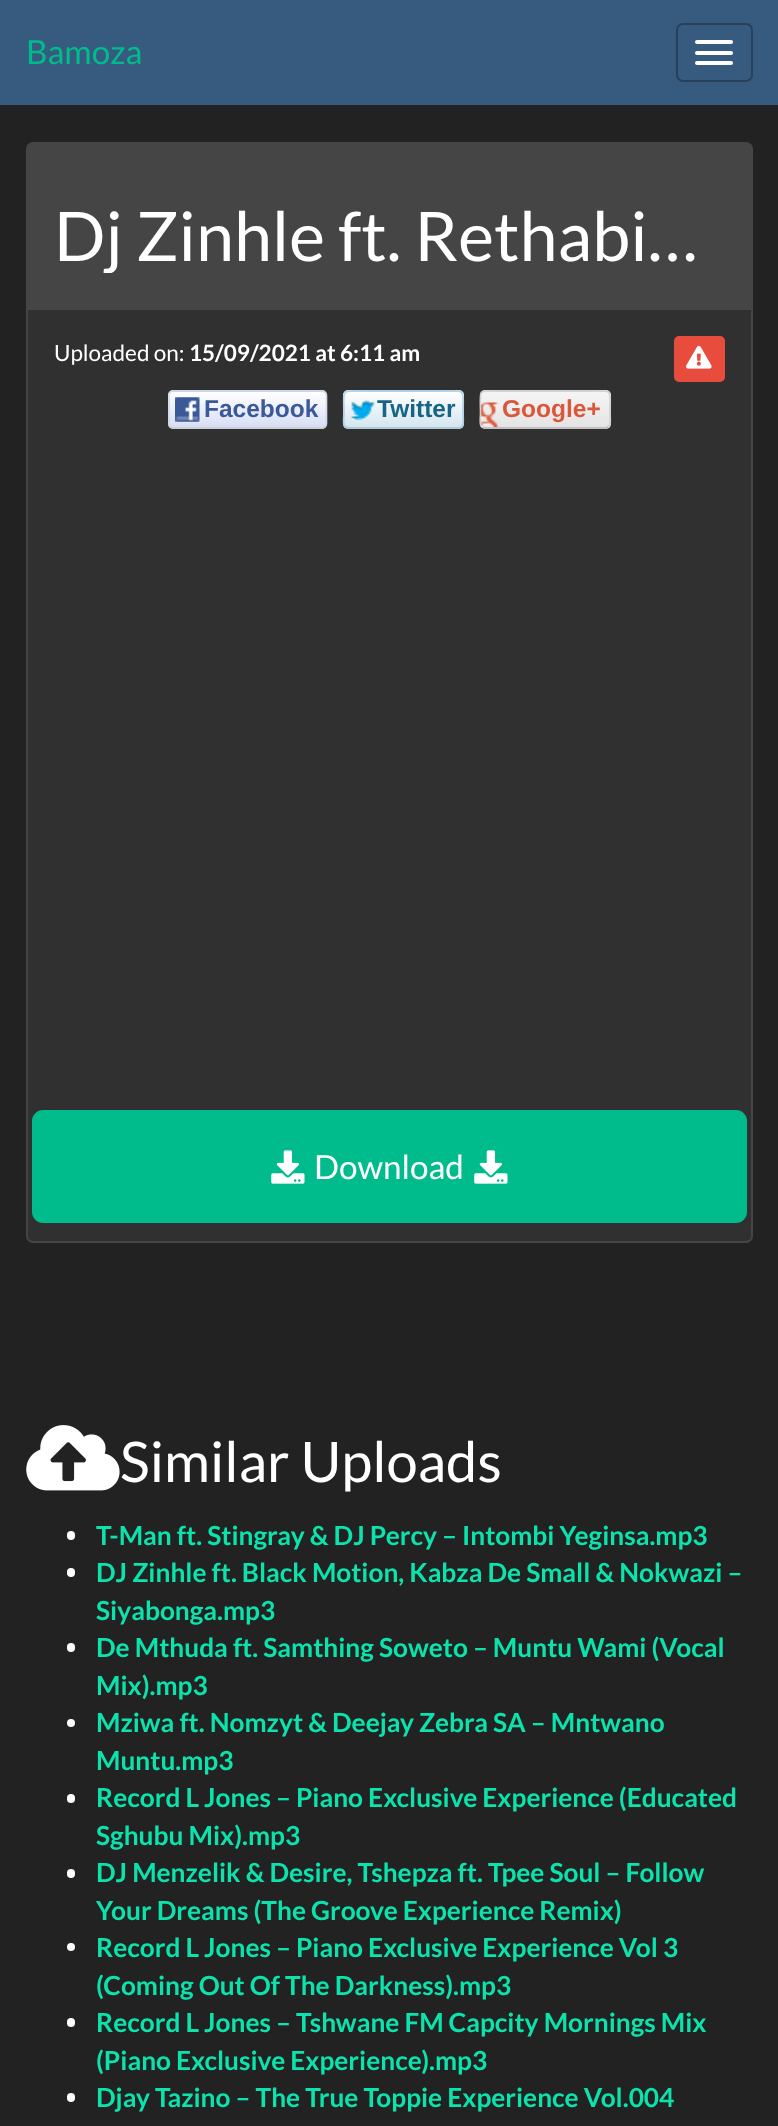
<svg xmlns="http://www.w3.org/2000/svg" xmlns:xlink="http://www.w3.org/1999/xlink" width="778" height="2126" viewBox="0 0 778 2126">
<style>
.cls-1{font:33.25px Lato;fill:#00bc8c}
.cls-2{font:68.25px Lato;fill:#ffffff}
.cls-3{font:22.5px Lato;fill:#ffffff}
.cls-4{font:bold 22.5px Lato;fill:#ffffff}
.cls-5{font:bold 24.5px Liberation Sans;fill:#3b5998}
.cls-6{font:bold 24.5px Liberation Sans;fill:#186487}
.cls-7{font:bold 24.5px Liberation Sans;fill:#da573b}
.cls-8{font:33.25px Lato;fill:#ffffff}
.cls-9{font:56px Lato;fill:#ffffff}
.cls-10{font:bold 26.25px Lato;fill:#0ce3ac}
</style>
<defs>
<clipPath id="clip1"><rect x="168" y="390" width="159" height="39" rx="5"/></clipPath>
<linearGradient id="g1" gradientUnits="userSpaceOnUse" x1="248" y1="357" x2="248" y2="392"><stop offset="0" stop-color="#ffffff"/><stop offset="1" stop-color="#d8def4"/></linearGradient>
<linearGradient id="g2" gradientUnits="userSpaceOnUse" x1="248" y1="392" x2="248" y2="427"><stop offset="0" stop-color="#ffffff"/><stop offset="1" stop-color="#d8def4"/></linearGradient>
<linearGradient id="g3" gradientUnits="userSpaceOnUse" x1="248" y1="427" x2="248" y2="462"><stop offset="0" stop-color="#ffffff"/><stop offset="1" stop-color="#d8def4"/></linearGradient>
<clipPath id="clip2"><rect x="343" y="390" width="121" height="39" rx="5"/></clipPath>
<linearGradient id="g4" gradientUnits="userSpaceOnUse" x1="403" y1="357" x2="403" y2="392"><stop offset="0" stop-color="#ffffff"/><stop offset="1" stop-color="#d5e6ef"/></linearGradient>
<linearGradient id="g5" gradientUnits="userSpaceOnUse" x1="403" y1="392" x2="403" y2="427"><stop offset="0" stop-color="#ffffff"/><stop offset="1" stop-color="#d5e6ef"/></linearGradient>
<linearGradient id="g6" gradientUnits="userSpaceOnUse" x1="403" y1="427" x2="403" y2="462"><stop offset="0" stop-color="#ffffff"/><stop offset="1" stop-color="#d5e6ef"/></linearGradient>
<clipPath id="clip3"><rect x="480" y="390" width="131" height="39" rx="5"/></clipPath>
<linearGradient id="g7" gradientUnits="userSpaceOnUse" x1="545" y1="357" x2="545" y2="392"><stop offset="0" stop-color="#f5f5f5"/><stop offset="1" stop-color="#e4e4e4"/></linearGradient>
<linearGradient id="g8" gradientUnits="userSpaceOnUse" x1="545" y1="392" x2="545" y2="427"><stop offset="0" stop-color="#f5f5f5"/><stop offset="1" stop-color="#e4e4e4"/></linearGradient>
<linearGradient id="g9" gradientUnits="userSpaceOnUse" x1="545" y1="427" x2="545" y2="462"><stop offset="0" stop-color="#f5f5f5"/><stop offset="1" stop-color="#e4e4e4"/></linearGradient>
<clipPath id="clip4"><rect x="54" y="198" width="657" height="75"/></clipPath>
</defs>
<rect width="100%" height="100%" fill="#222222"/>
<rect fill="#375a7f" x="0" y="0" width="778" height="105"/>
<rect fill="none" stroke="#28415b" stroke-width="2" x="677" y="24" width="75" height="57" rx="6"/>
<rect fill="#ffffff" x="695" y="40" width="38" height="4" rx="2"/>
<rect fill="#ffffff" x="695" y="51" width="38" height="4" rx="2"/>
<rect fill="#ffffff" x="695" y="61" width="38" height="4" rx="2"/>
<rect fill="#303030" stroke="#464545" stroke-width="2" x="27" y="143" width="725" height="1099" rx="6"/>
<path fill="#464545" d="M33 144H746C749 144 751 146 751 149V310H28V149C28 146 30 144 33 144Z"/>
<rect fill="#e74c3c" stroke="#e74c3c" stroke-width="4" x="676" y="338" width="47" height="42" rx="3"/>
<image xlink:href="image0.png" x="686" y="345" width="26" height="24"/>
<g clip-path="url(#clip1)">
<rect fill="url(#g1)" x="168" y="390" width="159" height="2"/>
<rect fill="url(#g2)" x="168" y="392" width="159" height="35"/>
<rect fill="url(#g3)" x="168" y="427" width="159" height="2"/>
</g>
<path fill="none" stroke="#bdc2cb" stroke-opacity="0.8" stroke-width="1.8" d="M325 426.5C324.5 427.5 323 428 322 428H173C172 428 171 427.5 170 426.5"/>
<path fill="none" stroke="#cad4e7" stroke-opacity="0.8" stroke-width="1.8" d="M170 426.5C169.5 426 169 424.5 169 423.5V395.5C169 394.5 169.5 393 170 392.5C171 391.5 172 391 173 391H322C323 391 324.5 391.5 325 392.5C326 393 326.5 394.5 326.5 395.5V423.5C326.5 424.5 326 426 325 426.5"/>
<image xlink:href="image1.png" x="175" y="397" width="25" height="25"/>
<g clip-path="url(#clip2)">
<rect fill="url(#g4)" x="343" y="390" width="121" height="2"/>
<rect fill="url(#g5)" x="343" y="392" width="121" height="35"/>
<rect fill="url(#g6)" x="343" y="427" width="121" height="2"/>
</g>
<path fill="none" stroke="#9ebacc" stroke-opacity="0.8" stroke-width="1.8" d="M461.5 426.5C461 427.5 459.5 428 458.5 428H348C347 428 346 427.5 345 426.5"/>
<path fill="none" stroke="#a4cce5" stroke-opacity="0.8" stroke-width="1.8" d="M345 426.5C342.5 424 344 417 344 414C344 387.5 339 391 366.5 391H440C467.5 391 463 387.5 463 414C463 417 464.5 424 461.5 426.5"/>
<image xlink:href="image2.png" x="350" y="400" width="25" height="20"/>
<g clip-path="url(#clip3)">
<rect fill="url(#g7)" x="480" y="390" width="131" height="2"/>
<rect fill="url(#g8)" x="480" y="392" width="131" height="35"/>
<rect fill="url(#g9)" x="480" y="427" width="131" height="2"/>
</g>
<path fill="none" stroke="#b3b3b3" stroke-opacity="0.8" stroke-width="1.8" d="M608.5 426.5L606 428H505H485L481.5 426.5"/>
<path fill="none" stroke="#cccccc" stroke-opacity="0.8" stroke-width="1.8" d="M481.5 426.5C479 424 480.5 417 480.5 414C480.5 386.5 475.5 391 505 391H585.5C614.5 391 610 386.5 610 414C610 417 611.5 424 608.5 426.5"/>
<image xlink:href="image3.png" x="481" y="402" width="18" height="25"/>
<rect fill="#00bc8c" stroke="#00bc8c" stroke-width="4" x="34" y="1112" width="711" height="109" rx="9"/>
<image xlink:href="image4.png" x="271" y="1150" width="34" height="34"/>
<image xlink:href="image4.png" x="474" y="1150" width="34" height="34"/>
<image xlink:href="image5.png" x="26" y="1425" width="94" height="66"/>
<rect fill="#ffffff" x="67" y="1531" width="8" height="9" rx="4"/>
<rect fill="#ffffff" x="67" y="1568" width="8" height="9" rx="4"/>
<rect fill="#ffffff" x="67" y="1643" width="8" height="9" rx="4"/>
<circle fill="#ffffff" cx="71" cy="1723" r="4"/>
<rect fill="#ffffff" x="67" y="1794" width="8" height="9" rx="4"/>
<rect fill="#ffffff" x="67" y="1869" width="8" height="9" rx="4"/>
<circle fill="#ffffff" cx="71" cy="1947" r="4"/>
<rect fill="#ffffff" x="67" y="2018" width="8" height="9" rx="4"/>
<rect fill="#ffffff" x="67" y="2093" width="8" height="9" rx="4"/>
<text class="cls-1" x="26" y="64">Bamoza</text>
<g clip-path="url(#clip4)">
<text class="cls-2" x="54" y="261">Dj Zinhle ft. Rethabi…</text>
</g>
<text class="cls-3" x="54" y="361">Uploaded on:</text>
<text class="cls-4" x="189" y="361">15/09/2021 at 6:11 am</text>
<text class="cls-5" x="204" y="417">Facebook</text>
<text class="cls-6" x="377" y="417">Twitter</text>
<text class="cls-7" x="502" y="417">Google+</text>
<text class="cls-8" x="314" y="1179">Download</text>
<text class="cls-9" x="120" y="1482">Similar Uploads</text>
<text class="cls-10"><tspan x="96" y="1545">T-Man ft. Stingray &amp; DJ Percy – Intombi Yeginsa.mp3</tspan><tspan x="96" y="1582">DJ Zinhle ft. Black Motion, Kabza De Small &amp; Nokwazi –</tspan><tspan x="96" y="1620">Siyabonga.mp3</tspan><tspan x="96" y="1657">De Mthuda ft. Samthing Soweto – Muntu Wami (Vocal</tspan><tspan x="96" y="1695">Mix).mp3</tspan><tspan x="96" y="1732">Mziwa ft. Nomzyt &amp; Deejay Zebra SA – Mntwano</tspan><tspan x="96" y="1770">Muntu.mp3</tspan><tspan x="96" y="1807">Record L Jones – Piano Exclusive Experience (Educated</tspan><tspan x="96" y="1845">Sghubu Mix).mp3</tspan><tspan x="96" y="1882">DJ Menzelik &amp; Desire, Tshepza ft. Tpee Soul – Follow</tspan><tspan x="96" y="1920">Your Dreams (The Groove Experience Remix)</tspan><tspan x="96" y="1957">Record L Jones – Piano Exclusive Experience Vol 3</tspan><tspan x="96" y="1995">(Coming Out Of The Darkness).mp3</tspan><tspan x="96" y="2032">Record L Jones – Tshwane FM Capcity Mornings Mix</tspan><tspan x="96" y="2070">(Piano Exclusive Experience).mp3</tspan><tspan x="96" y="2107">Djay Tazino – The True Toppie Experience Vol.004</tspan></text>
</svg>
